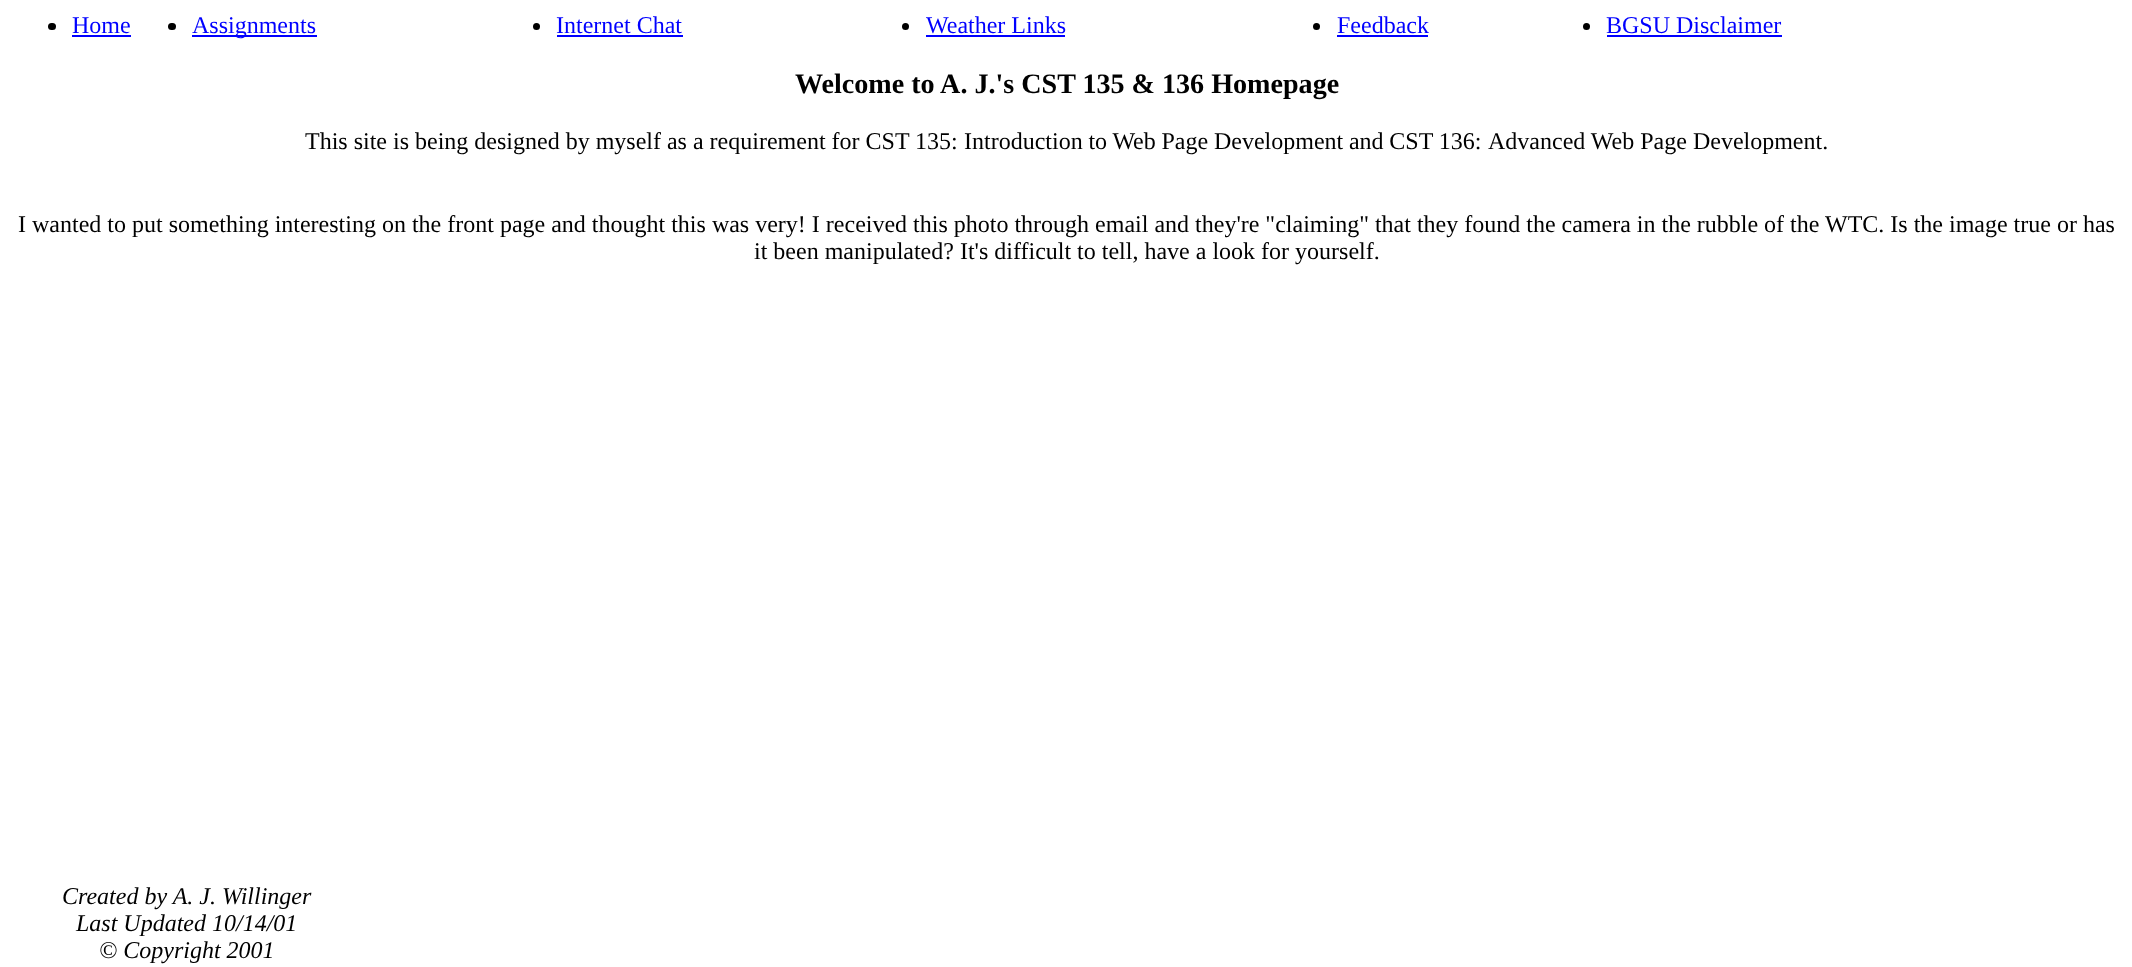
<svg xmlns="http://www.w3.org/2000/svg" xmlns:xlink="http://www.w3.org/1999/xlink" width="2132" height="967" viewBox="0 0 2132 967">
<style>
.cls-1{font:24px Liberation Serif;fill:#0000ff}
.cls-2{font:bold 28.1px Liberation Serif;fill:#000000}
.cls-3{font:24px Liberation Serif;fill:#000000}
.cls-4{font:italic 24px Liberation Serif;fill:#000000}
</style>
<rect width="100%" height="100%" fill="#ffffff"/>
<rect fill="#000000" x="48" y="23" width="8" height="7" rx="3.5"/>
<rect fill="#0000ff" x="72" y="35" width="59" height="2"/>
<rect fill="#000000" x="168" y="23" width="8" height="7" rx="3.5"/>
<rect fill="#0000ff" x="192" y="35" width="125" height="2"/>
<circle fill="#000000" cx="536.5" cy="26.5" r="3.5"/>
<rect fill="#0000ff" x="557" y="35" width="126" height="2"/>
<circle fill="#000000" cx="905.5" cy="26.5" r="3.5"/>
<rect fill="#0000ff" x="926" y="35" width="139" height="2"/>
<circle fill="#000000" cx="1316.5" cy="26.5" r="3.5"/>
<rect fill="#0000ff" x="1337" y="35" width="91" height="2"/>
<circle fill="#000000" cx="1586.5" cy="26.5" r="3.5"/>
<rect fill="#0000ff" x="1607" y="35" width="175" height="2"/>
<text class="cls-1" x="72" y="33">Home</text>
<text class="cls-1" x="192" y="33">Assignments</text>
<text class="cls-1" x="556" y="33">Internet Chat</text>
<text class="cls-1" x="926" y="33">Weather Links</text>
<text class="cls-1" x="1337" y="33">Feedback</text>
<text class="cls-1" x="1606" y="33">BGSU Disclaimer</text>
<text class="cls-2" x="795" y="93">Welcome to A. J.'s CST 135 &amp; 136 Homepage</text>
<text class="cls-3" x="305" y="149">This site is being designed by myself as a requirement for CST 135:</text>
<text class="cls-3" x="964" y="149" word-spacing="-0.25">Introduction to Web Page Development and CST 136:</text>
<text class="cls-3" x="1488" y="149">Advanced Web Page Development.</text>
<text class="cls-3" x="18" y="232">I wanted to put something interesting on the front page and thought this was very! I received this photo through email and they're "claiming" that they found the camera in the rubble of the WTC. Is the image true or has</text>
<text class="cls-3" x="754" y="259">it been manipulated? It's difficult to tell, have a look for yourself.</text>
<text class="cls-4" x="62" y="904">Created by A. J. Willinger</text>
<text class="cls-4" x="76" y="931">Last Updated 10/14/01</text>
<text class="cls-4" x="99" y="958">© Copyright 2001</text>
</svg>
